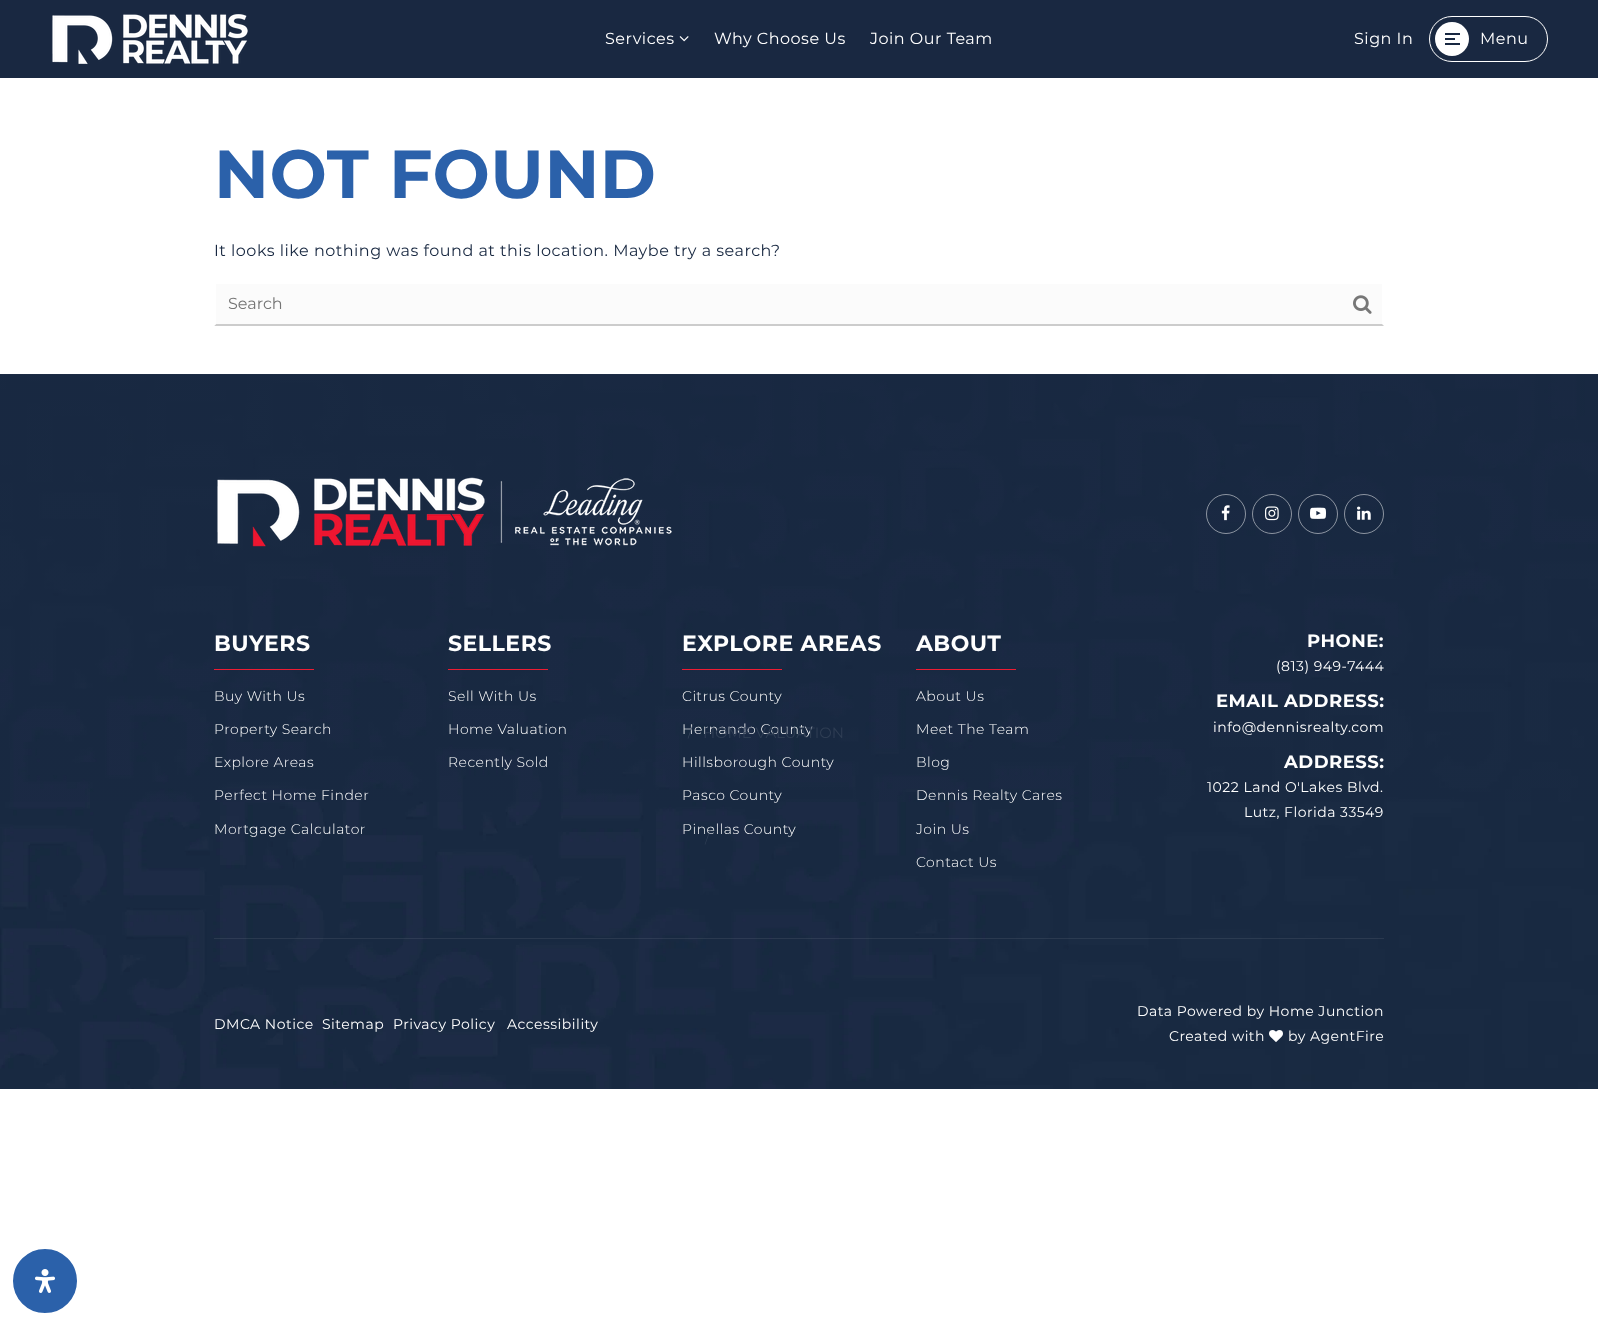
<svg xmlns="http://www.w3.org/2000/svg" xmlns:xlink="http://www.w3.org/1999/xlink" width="1598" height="1326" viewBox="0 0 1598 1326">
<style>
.cls-1{font:bold 68px Montserrat;letter-spacing:0.5px;fill:#2b61aa}
.cls-2{font:16px Montserrat;letter-spacing:0.5px;fill:#182841}
.cls-3{font:16px Montserrat;fill:#757575}
.cls-4{font:16px Montserrat;letter-spacing:0.5px;fill:#ffffff}
.cls-5{font:bold 22px Montserrat;letter-spacing:0.5px;fill:#ffffff}
.cls-6{font:300 14px Montserrat;letter-spacing:0.5px;fill:#ffffff}
.cls-7{font:15px Montserrat;letter-spacing:-0.1px;fill:#2e3d53}
.cls-8{font:300 16px Montserrat;letter-spacing:0.5px;fill:#36455a}
.cls-9{font:300 16px Montserrat;letter-spacing:0.5px;fill:#2e3d53}
.cls-10{font:bold 18px Montserrat;letter-spacing:0.5px;fill:#ffffff}
.cls-11{font:14px Montserrat;letter-spacing:0.5px;fill:#ffffff}
</style>
<defs>
<linearGradient id="g1" gradientUnits="userSpaceOnUse" x1="799" y1="374" x2="799" y2="1089"><stop offset="0" stop-color="#182841" stop-opacity="0.77"/><stop offset="1" stop-color="#182841" stop-opacity="0"/></linearGradient>
</defs>
<rect width="100%" height="100%" fill="#ffffff"/>
<rect fill="#fbfbfb" x="214" y="284" width="1170" height="42"/>
<path fill="#ffffff" d="M1384 282V326L1382 324V284Z"/>
<path fill="#cccccc" d="M1384 326H214L216 324H1382Z"/>
<path fill="#ffffff" d="M214 326V282L216 284V324Z"/>
<image xlink:href="image0.png" x="1353" y="295" width="19" height="19"/>
<rect fill="#192841" x="0" y="0" width="1598" height="78"/>
<image xlink:href="image1.png" x="52" y="14" width="196" height="51"/>
<image xlink:href="image2.png" x="679" y="36" width="10" height="6"/>
<rect fill="none" stroke="#ffffff" x="1429.5" y="16.5" width="118" height="45" rx="22.5"/>
<circle fill="#ffffff" cx="1452" cy="39" r="17"/>
<rect fill="#182841" x="1445" y="33" width="15" height="2"/>
<rect fill="#182841" x="1445" y="38" width="10" height="2"/>
<rect fill="#182841" x="1445" y="43" width="15" height="2"/>
<image xlink:href="image3.png" x="0" y="374" width="1598" height="715"/>
<rect fill="#ffffff" fill-opacity="0.08" x="0" y="374" width="1598" height="1"/>
<rect fill="url(#g1)" x="0" y="374" width="1598" height="428"/>
<image xlink:href="image4.png" x="217" y="477" width="455" height="70"/>
<circle fill="none" stroke="#ffffff" stroke-opacity="0.5" cx="1226" cy="514" r="19.5"/>
<image xlink:href="image5.png" x="1221" y="505" width="9" height="16"/>
<circle fill="none" stroke="#8c94a0" cx="1272" cy="514" r="19.5"/>
<image xlink:href="image6.png" x="1265" y="506" width="14" height="15"/>
<circle fill="none" stroke="#ffffff" stroke-opacity="0.5" cx="1318" cy="514" r="19.5"/>
<image xlink:href="image7.png" x="1310" y="507" width="16" height="12"/>
<circle fill="none" stroke="#ffffff" stroke-opacity="0.5" cx="1364" cy="514" r="19.5"/>
<image xlink:href="image8.png" x="1357" y="506" width="14" height="14"/>
<rect fill="#ed1c33" x="214" y="669" width="100" height="1"/>
<rect fill="#ed1c33" x="448" y="669" width="100" height="1"/>
<rect fill="#ed1c33" x="682" y="669" width="100" height="1"/>
<rect fill="#ed1c33" x="916" y="669" width="100" height="1"/>
<rect fill="#ffffff" fill-opacity="0.08" x="214" y="938" width="1170" height="1"/>
<image xlink:href="image9.png" x="1269" y="1030" width="14" height="12"/>
<circle fill="#2b61aa" stroke="#ffffff" stroke-width="3" cx="45" cy="1281" r="33.5"/>
<image xlink:href="image10.png" x="35" y="1269" width="20" height="24"/>
<text class="cls-1" x="214" y="198">NOT FOUND</text>
<text class="cls-2" x="214" y="256">It looks like nothing was found at this location. Maybe try a search?</text>
<text class="cls-3" x="228" y="309">Search</text>
<text class="cls-4" x="605" y="44">Services</text>
<text class="cls-4" x="714" y="44">Why Choose Us</text>
<text class="cls-4" x="870" y="44">Join Our Team</text>
<text class="cls-4" x="1354" y="44">Sign In</text>
<text class="cls-4" x="1480" y="44">Menu</text>
<text class="cls-5" x="214" y="651">BUYERS</text>
<text class="cls-6" x="214" y="701">Buy With Us</text>
<text class="cls-6" x="214" y="734">Property Search</text>
<text class="cls-6" x="214" y="767">Explore Areas</text>
<text class="cls-6" x="214" y="800">Perfect Home Finder</text>
<text class="cls-6" x="214" y="834">Mortgage Calculator</text>
<text class="cls-5" x="448" y="651">SELLERS</text>
<text class="cls-6" x="448" y="701">Sell With Us</text>
<text class="cls-6" x="448" y="734">Home Valuation</text>
<text class="cls-6" x="448" y="767">Recently Sold</text>
<text class="cls-5" x="682" y="651">EXPLORE AREAS</text>
<text class="cls-6" x="682" y="701">Citrus County</text>
<text class="cls-6" x="682" y="734">Hernando County</text>
<text class="cls-7" x="703" y="738">HOME VALUATION</text>
<text class="cls-8" x="688" y="737">/</text>
<text class="cls-6" x="682" y="767">Hillsborough County</text>
<text class="cls-6" x="682" y="800">Pasco County</text>
<text class="cls-6" x="682" y="834">Pinellas County</text>
<text class="cls-9" x="705" y="843">/</text>
<text class="cls-5" x="916" y="651">ABOUT</text>
<text class="cls-6" x="916" y="701">About Us</text>
<text class="cls-6" x="916" y="734">Meet The Team</text>
<text class="cls-6" x="916" y="767">Blog</text>
<text class="cls-6" x="916" y="800">Dennis Realty Cares</text>
<text class="cls-6" x="916" y="834">Join Us</text>
<text class="cls-6" x="916" y="867">Contact Us</text>
<text class="cls-10" x="1307" y="647">PHONE:</text>
<text class="cls-11" x="1276" y="671">(813) 949-7444</text>
<text class="cls-10" x="1216" y="707">EMAIL ADDRESS:</text>
<text class="cls-11" x="1213" y="732">info@dennisrealty.com</text>
<text class="cls-10" x="1284" y="768">ADDRESS:</text>
<text class="cls-11" x="1207" y="792">1022 Land O'Lakes Blvd.</text>
<text class="cls-11" x="1244" y="817">Lutz, Florida 33549</text>
<text class="cls-11" x="214" y="1029">DMCA Notice</text>
<text class="cls-11" x="322" y="1029">Sitemap</text>
<text class="cls-11" x="393" y="1029">Privacy Policy</text>
<text class="cls-11" x="507" y="1029">Accessibility</text>
<text class="cls-11" x="1137" y="1016">Data Powered by Home Junction</text>
<text class="cls-11" x="1169" y="1041">Created with</text>
<text class="cls-11" x="1288" y="1041">by AgentFire</text>
</svg>
